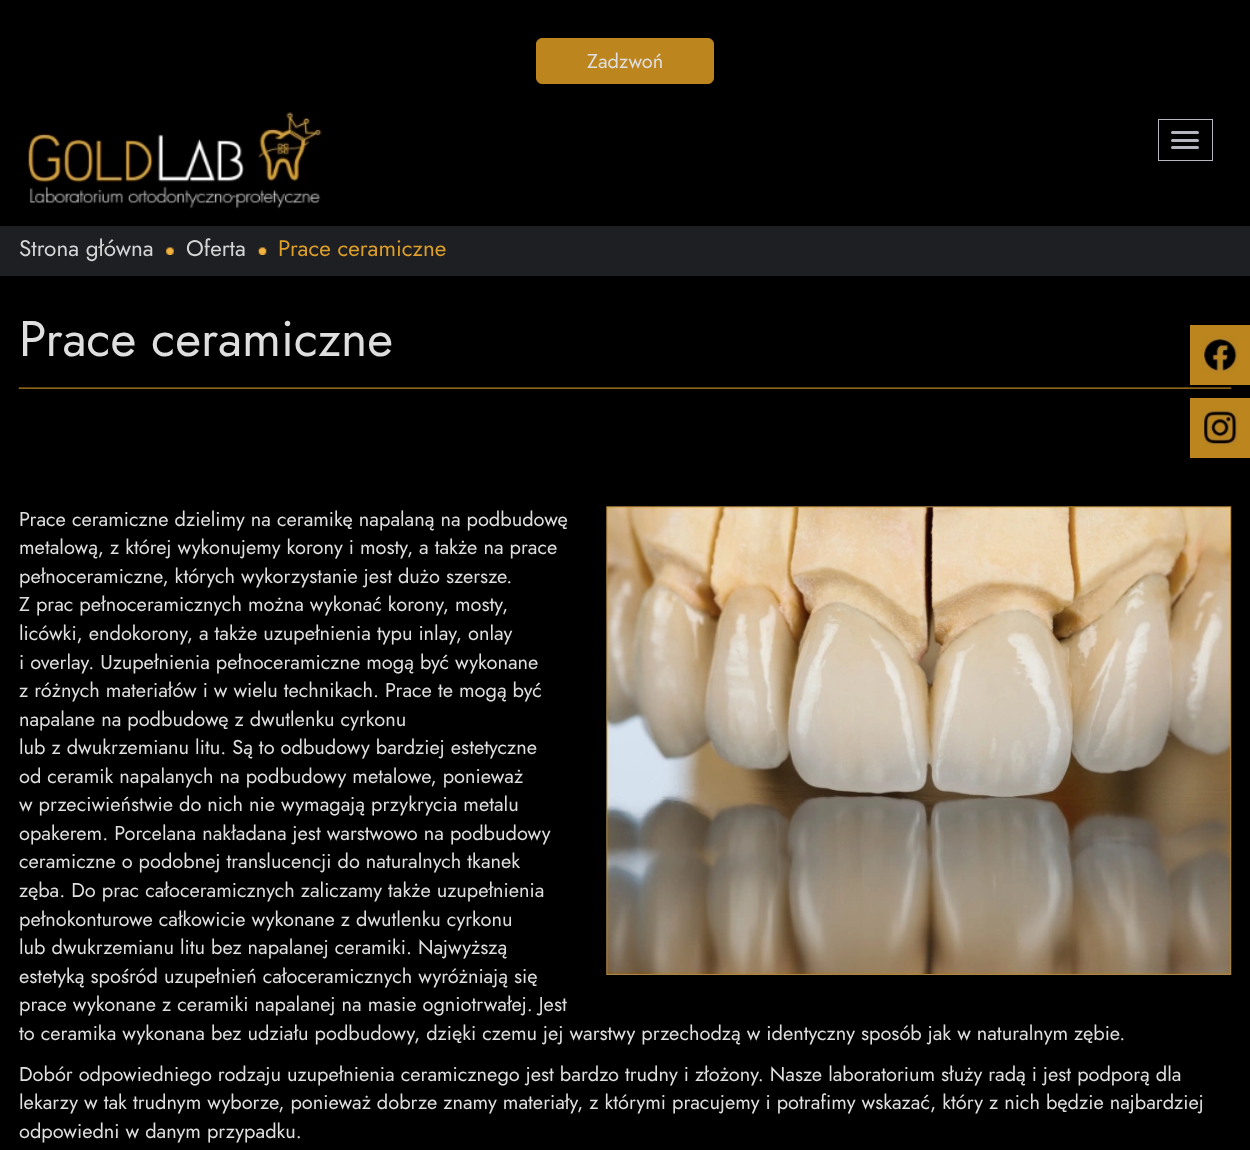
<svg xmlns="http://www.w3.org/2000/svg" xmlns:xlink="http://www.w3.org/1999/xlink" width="1250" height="1150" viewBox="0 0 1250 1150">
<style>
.cls-1{font:20px Jost;fill:#dfdfdf}
.cls-2{font:22.5px Jost;fill:#d5d5d6}
.cls-3{font:22.5px Jost;fill:#de9f28}
.cls-4{font:50px Jost;fill:#dfdfdf}
</style>
<rect width="100%" height="100%" fill="#000000"/>
<rect fill="#bc851e" stroke="#bc851e" x="536.5" y="38.5" width="177" height="45" rx="5.5"/>
<image xlink:href="image0.png" x="27" y="111" width="296" height="98"/>
<rect fill="none" stroke="#b5b6bf" x="1158.5" y="119.5" width="54" height="41"/>
<rect fill="#b5b6bf" x="1171" y="131" width="28" height="3" rx="1.5"/>
<rect fill="#b5b6bf" x="1171" y="139" width="28" height="3" rx="1.5"/>
<rect fill="#b5b6bf" x="1171" y="146" width="28" height="3" rx="1.5"/>
<rect fill="#1d1f23" x="0" y="226" width="1250" height="50"/>
<image xlink:href="image1.png" x="166" y="247" width="8" height="8"/>
<image xlink:href="image2.png" x="258" y="247" width="9" height="8"/>
<image xlink:href="image3.png" x="18" y="387" width="1214" height="2"/>
<image xlink:href="image4.png" x="606" y="506" width="626" height="469"/>
<rect fill="#bc851e" x="1190" y="325" width="60" height="60"/>
<image xlink:href="image5.png" x="1201" y="336" width="38" height="38"/>
<rect fill="#bc851e" x="1190" y="398" width="60" height="60"/>
<image xlink:href="image6.png" x="1201" y="409" width="38" height="37"/>
<text class="cls-1" x="587" y="68">Zadzwoń</text>
<text class="cls-2" x="19" y="256">Strona główna</text>
<text class="cls-2" x="186" y="256">Oferta</text>
<text class="cls-3" x="278" y="256">Prace ceramiczne</text>
<text class="cls-4" x="19" y="356">Prace ceramiczne</text>
<text class="cls-1"><tspan x="19" y="526">Prace ceramiczne dzielimy na ceramikę napalaną na podbudowę</tspan><tspan x="19" y="554">metalową, z której wykonujemy korony i mosty, a także na prace</tspan><tspan x="19" y="583">pełnoceramiczne, których wykorzystanie jest dużo szersze.</tspan><tspan x="19" y="611">Z prac pełnoceramicznych można wykonać korony, mosty,</tspan><tspan x="19" y="640">licówki, endokorony, a także uzupełnienia typu inlay, onlay</tspan><tspan x="19" y="669">i overlay. Uzupełnienia pełnoceramiczne mogą być wykonane</tspan><tspan x="19" y="697">z różnych materiałów i w wielu technikach. Prace te mogą być</tspan><tspan x="19" y="726">napalane na podbudowę z dwutlenku cyrkonu</tspan><tspan x="19" y="754">lub z dwukrzemianu litu. Są to odbudowy bardziej estetyczne</tspan><tspan x="19" y="783">od ceramik napalanych na podbudowy metalowe, ponieważ</tspan><tspan x="19" y="811">w przeciwieństwie do nich nie wymagają przykrycia metalu</tspan><tspan x="19" y="840">opakerem. Porcelana nakładana jest warstwowo na podbudowy</tspan><tspan x="19" y="868">ceramiczne o podobnej translucencji do naturalnych tkanek</tspan><tspan x="19" y="897">zęba. Do prac całoceramicznych zaliczamy także uzupełnienia</tspan><tspan x="19" y="926">pełnokonturowe całkowicie wykonane z dwutlenku cyrkonu</tspan><tspan x="19" y="954">lub dwukrzemianu litu bez napalanej ceramiki. Najwyższą</tspan><tspan x="19" y="983">estetyką spośród uzupełnień całoceramicznych wyróżniają się</tspan><tspan x="19" y="1011">prace wykonane z ceramiki napalanej na masie ogniotrwałej. Jest</tspan><tspan x="19" y="1040">to ceramika wykonana bez udziału podbudowy, dzięki czemu jej warstwy przechodzą w identyczny sposób jak w naturalnym zębie.</tspan></text>
<text class="cls-1"><tspan x="19" y="1081">Dobór odpowiedniego rodzaju uzupełnienia ceramicznego jest bardzo trudny i złożony. Nasze laboratorium służy radą i jest podporą dla</tspan><tspan x="19" y="1109">lekarzy w tak trudnym wyborze, ponieważ dobrze znamy materiały, z którymi pracujemy i potrafimy wskazać, który z nich będzie najbardziej</tspan><tspan x="19" y="1138">odpowiedni w danym przypadku.</tspan></text>
</svg>
